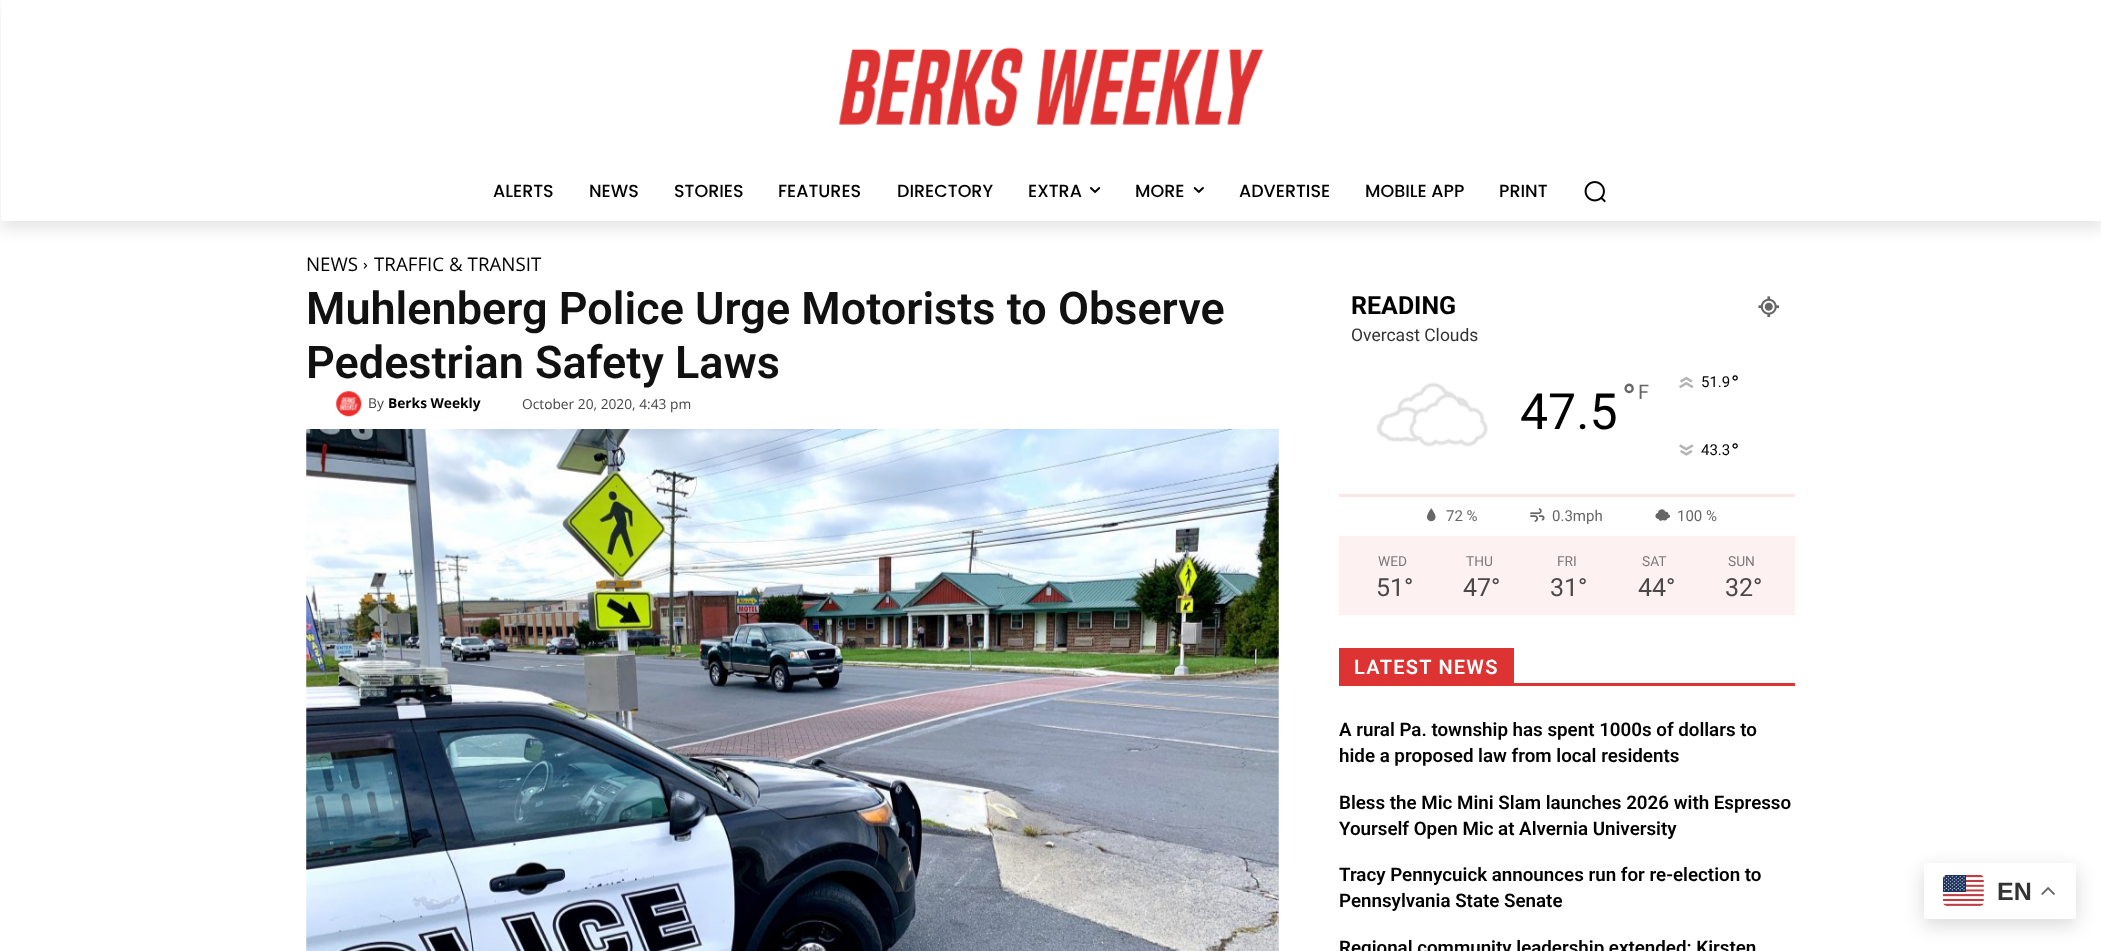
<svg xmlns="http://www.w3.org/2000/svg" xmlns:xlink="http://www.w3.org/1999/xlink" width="2101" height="951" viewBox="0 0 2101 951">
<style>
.cls-1{font:500 17.5px Poppins;fill:#000000}
.cls-2{font:18.75px Open Sans;fill:#000000}
.cls-3{font:600 45px Roboto;fill:#111111}
.cls-4{font:13.75px Open Sans;fill:#444444}
.cls-5{font:bold 13.75px Open Sans;fill:#000000}
.cls-6{font:bold 25px Roboto;fill:#000000}
.cls-7{font:17.5px Roboto;fill:#333333}
.cls-8{font:38px Roboto;fill:#666666}
.cls-9{font:20px Roboto;fill:#666666}
.cls-10{font:50px Roboto;fill:#000000}
.cls-11{font:15px Roboto;fill:#000000}
.cls-12{font:22px Roboto;fill:#000000}
.cls-13{font:15px Roboto;fill:#666666}
.cls-14{font:13.75px Roboto;fill:#7f7979}
.cls-15{font:25px Roboto;fill:#4c4848}
.cls-16{font:600 20px Roboto;letter-spacing:1.25px;fill:#ffffff}
.cls-17{font:600 18.75px Roboto;fill:#000000}
.cls-18{font:bold 25px Liberation Sans;fill:#333333}
</style>
<defs>
<clipPath id="clip1"><path d="M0 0H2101V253H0ZM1 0H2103V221H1Z" clip-rule="evenodd"/></clipPath>
</defs>
<rect width="100%" height="100%" fill="#ffffff"/>
<image xlink:href="image0.png" x="838" y="47" width="426" height="80"/>
<g clip-path="url(#clip1)">
<rect fill="#000000" fill-opacity="0.1" filter="blur(7.5px)" x="1" y="8" width="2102" height="221"/>
</g>
<image xlink:href="image1.png" x="1090" y="187" width="11" height="6"/>
<image xlink:href="image2.png" x="1193" y="187" width="11" height="6"/>
<image xlink:href="image3.png" x="1584" y="181" width="22" height="22"/>
<image xlink:href="image4.png" x="363" y="262" width="5" height="7"/>
<image xlink:href="image5.png" x="336" y="391" width="26" height="26"/>
<image xlink:href="image6.png" x="306" y="429" width="973" height="522"/>
<image xlink:href="image7.png" x="1758" y="296" width="22" height="21"/>
<image xlink:href="image8.png" x="1376" y="382" width="112" height="65"/>
<image xlink:href="image9.png" x="1679" y="376" width="15" height="13"/>
<image xlink:href="image10.png" x="1679" y="444" width="15" height="12"/>
<rect fill="#fbe7e7" x="1339" y="494" width="456" height="3"/>
<image xlink:href="image11.png" x="1427" y="508" width="9" height="14"/>
<image xlink:href="image12.png" x="1530" y="508" width="15" height="14"/>
<image xlink:href="image13.png" x="1655" y="509" width="15" height="12"/>
<rect fill="#fdf1f1" x="1339" y="536" width="456" height="79"/>
<rect fill="#dd3333" x="1339" y="683" width="456" height="3"/>
<rect fill="#dd3333" x="1339" y="648" width="175" height="35"/>
<rect fill="#000000" fill-opacity="0.15" filter="blur(9.5px)" x="1924" y="869" width="152" height="56" rx="2.5"/>
<rect fill="#ffffff" x="1924" y="863" width="152" height="56" rx="2.5"/>
<image xlink:href="image14.png" x="1943" y="875" width="41" height="31"/>
<image xlink:href="image15.png" x="2041" y="887" width="14" height="8"/>
<text class="cls-1" x="493" y="197">ALERTS</text>
<text class="cls-1" x="589" y="197">NEWS</text>
<text class="cls-1" x="674" y="197">STORIES</text>
<text class="cls-1" x="778" y="197">FEATURES</text>
<text class="cls-1" x="897" y="197">DIRECTORY</text>
<text class="cls-1" x="1028" y="197">EXTRA</text>
<text class="cls-1" x="1135" y="197">MORE</text>
<text class="cls-1" x="1239" y="197">ADVERTISE</text>
<text class="cls-1" x="1365" y="197">MOBILE APP</text>
<text class="cls-1" x="1499" y="197">PRINT</text>
<text class="cls-2" x="306" y="271">NEWS</text>
<text class="cls-2" x="374" y="271">TRAFFIC &amp; TRANSIT</text>
<text class="cls-3"><tspan x="306" y="324">Muhlenberg Police Urge Motorists to Observe</tspan><tspan x="306" y="378">Pedestrian Safety Laws</tspan></text>
<text class="cls-4" x="368" y="408">By</text>
<text class="cls-5" x="388" y="408">Berks Weekly</text>
<text class="cls-4" x="522" y="409">October 20, 2020, 4:43 pm</text>
<text class="cls-6" x="1351" y="314">READING</text>
<text class="cls-7" x="1351" y="341">Overcast Clouds</text>
<text class="cls-8" x="1622" y="411">°</text>
<text class="cls-9" x="1638" y="399">F</text>
<text class="cls-10" x="1520" y="429">47.5</text>
<text class="cls-11" x="1701" y="387">51.9</text>
<text class="cls-12" x="1731" y="391">°</text>
<text class="cls-11" x="1701" y="455">43.3</text>
<text class="cls-12" x="1731" y="459">°</text>
<text class="cls-13" x="1446" y="521">72 %</text>
<text class="cls-13" x="1552" y="521">0.3mph</text>
<text class="cls-13" x="1677" y="521">100 %</text>
<text class="cls-14" x="1378" y="566">WED</text>
<text class="cls-15" x="1376" y="596">51°</text>
<text class="cls-14" x="1466" y="566">THU</text>
<text class="cls-15" x="1463" y="596">47°</text>
<text class="cls-14" x="1557" y="566">FRI</text>
<text class="cls-15" x="1550" y="596">31°</text>
<text class="cls-14" x="1642" y="566">SAT</text>
<text class="cls-15" x="1638" y="596">44°</text>
<text class="cls-14" x="1728" y="566">SUN</text>
<text class="cls-15" x="1725" y="596">32°</text>
<text class="cls-16" x="1354" y="674">LATEST NEWS</text>
<text class="cls-17"><tspan x="1339" y="736">A rural Pa. township has spent 1000s of dollars to</tspan><tspan x="1339" y="762">hide a proposed law from local residents</tspan></text>
<text class="cls-17"><tspan x="1339" y="809">Bless the Mic Mini Slam launches 2026 with Espresso</tspan><tspan x="1339" y="835">Yourself Open Mic at Alvernia University</tspan></text>
<text class="cls-17"><tspan x="1339" y="881">Tracy Pennycuick announces run for re-election to</tspan><tspan x="1339" y="907">Pennsylvania State Senate</tspan></text>
<text class="cls-17" x="1339" y="954">Regional community leadership extended: Kirsten</text>
<text class="cls-18" x="1997" y="900">EN</text>
</svg>
